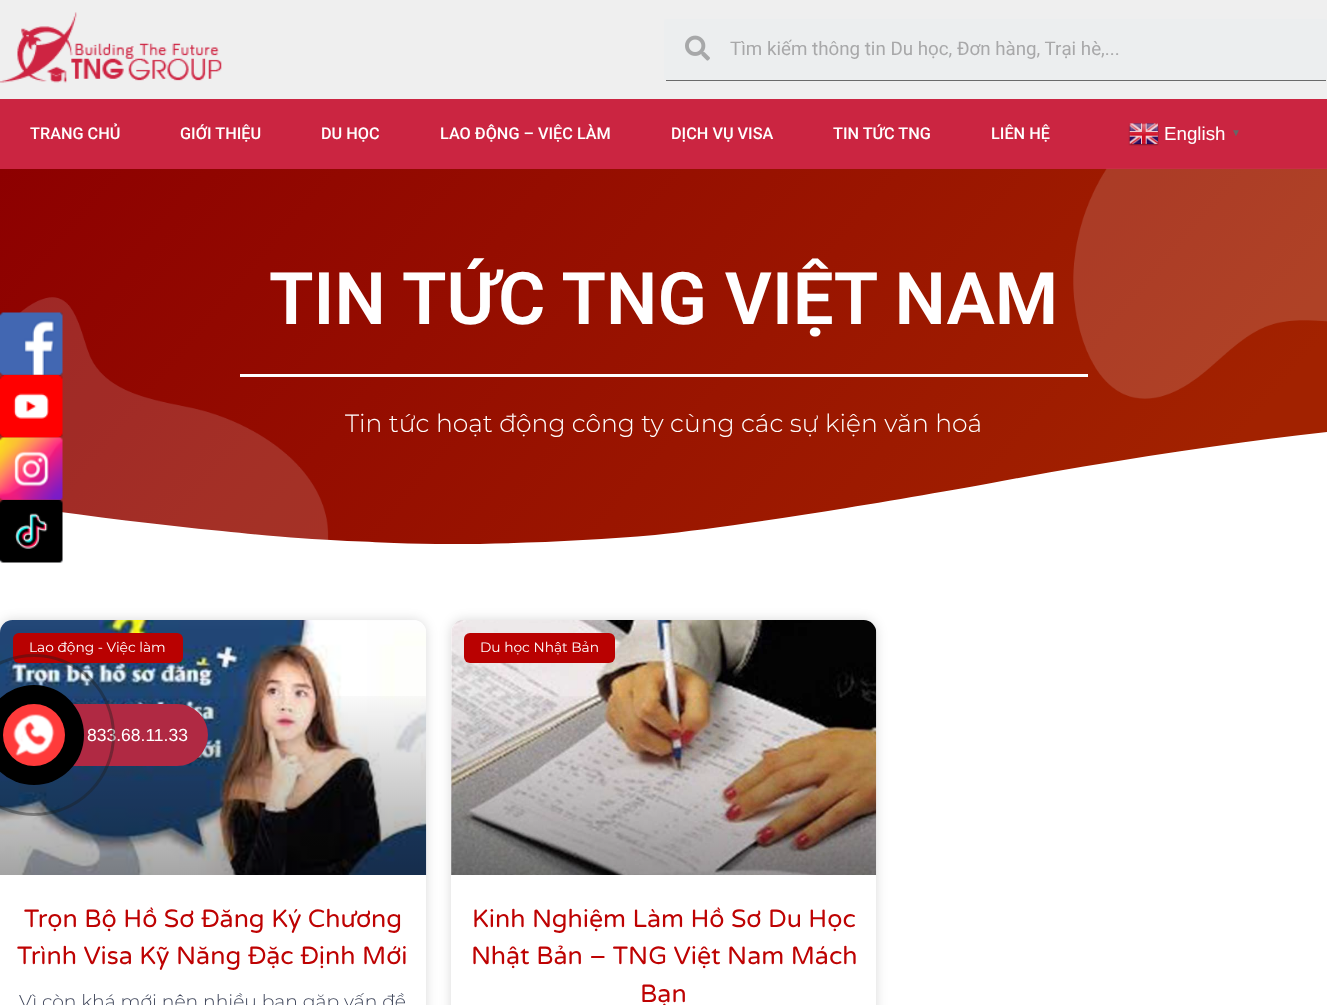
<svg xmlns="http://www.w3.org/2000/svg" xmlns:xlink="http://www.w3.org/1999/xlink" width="1327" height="1005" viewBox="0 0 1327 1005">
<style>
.cls-1{font:18.75px Roboto;fill:#a8a8a9}
.cls-2{font:500 16.25px Roboto;fill:#ffffff}
.cls-3{font:18.75px Liberation Sans;fill:#ffffff}
.cls-4{font:bold 10px Liberation Sans;fill:#666666}
.cls-5{font:600 72.5px Roboto;fill:#ffffff}
.cls-6{font:300 25px Montserrat;fill:#ffffff}
.cls-7{font:13.75px Montserrat;fill:#ffffff}
.cls-8{font:25px Varela Round;fill:#be0202}
.cls-9{font:300 18.75px Montserrat;fill:#3d4459}
.cls-10{font:17.5px Liberation Sans;fill:#ffffff}
</style>
<defs>
<linearGradient id="g1" gradientUnits="userSpaceOnUse" x1="180" y1="-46" x2="1147" y2="766"><stop offset="0" stop-color="#8d0000"/><stop offset="0.89" stop-color="#a22200"/></linearGradient>
<linearGradient id="g2" gradientUnits="userSpaceOnUse" x1="213" y1="875" x2="213" y2="620"><stop offset="0" stop-color="#000000" stop-opacity="0.35"/><stop offset="0.75" stop-color="#000000" stop-opacity="0"/></linearGradient>
<linearGradient id="g3" gradientUnits="userSpaceOnUse" x1="664" y1="875" x2="664" y2="620"><stop offset="0" stop-color="#000000" stop-opacity="0.35"/><stop offset="0.75" stop-color="#000000" stop-opacity="0"/></linearGradient>
</defs>
<rect width="100%" height="100%" fill="#ffffff"/>
<rect fill="#efefef" x="0" y="0" width="1327" height="99"/>
<image xlink:href="image0.png" x="0" y="12" width="222" height="71"/>
<path fill="#eceeef" d="M668 19H1324C1326 19 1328 20 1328 22V78C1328 79 1326 80 1324 80H668C665 80 664 79 664 78V22C664 20 665 19 668 19Z"/>
<rect fill="#6a6a6a" x="666" y="80" width="660" height="1"/>
<image xlink:href="image1.png" x="685" y="35" width="25" height="26"/>
<rect fill="#cb2541" x="0" y="99" width="1327" height="70"/>
<image xlink:href="image2.png" x="1128" y="123" width="31" height="23"/>
<rect fill="url(#g1)" x="0" y="169" width="1327" height="375"/>
<image xlink:href="image3.png" x="0" y="168" width="1327" height="372"/>
<rect fill="#ffffff" x="240" y="374" width="848" height="3"/>
<path fill="#ffffff" d="M394 543C472 546 572 542 655 535C736 527 900 500 1002 481C1264 433 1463 414 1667 407C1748 404 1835 401 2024 410C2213 419 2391 449 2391 449V552H-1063V507C-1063 507-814 458-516 461C-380 462-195 471-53 495C20 507 127 522 222 531C316 541 358 541 394 543Z"/>
<rect fill="#000000" fill-opacity="0.15" filter="blur(6px)" x="0" y="620" width="426" height="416" rx="13"/>
<rect fill="#ffffff" x="0" y="620" width="426" height="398" rx="13"/>
<image xlink:href="image4.png" x="0" y="620" width="427" height="255"/>
<rect fill="url(#g2)" x="0" y="696" width="426" height="179"/>
<rect fill="#b90101" x="13" y="633" width="170" height="30" rx="6"/>
<rect fill="#000000" fill-opacity="0.15" filter="blur(6px)" x="451" y="620" width="425" height="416" rx="13"/>
<rect fill="#ffffff" x="451" y="620" width="425" height="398" rx="13"/>
<image xlink:href="image5.png" x="451" y="620" width="426" height="255"/>
<rect fill="url(#g3)" x="451" y="696" width="425" height="179"/>
<rect fill="#b90101" x="464" y="633" width="151" height="30" rx="6"/>
<image xlink:href="image6.png" x="0" y="312" width="63" height="64"/>
<image xlink:href="image7.png" x="0" y="375" width="63" height="63"/>
<image xlink:href="image8.png" x="0" y="437" width="63" height="64"/>
<image xlink:href="image9.png" x="0" y="500" width="63" height="63"/>
<rect fill="#b02943" x="3" y="704" width="205" height="62" rx="31"/>
<text class="cls-1" x="730" y="55">Tìm kiếm thông tin Du học, Đơn hàng, Trại hè,...</text>
<text class="cls-2" x="30" y="139">TRANG CHỦ</text>
<text class="cls-2" x="180" y="139">GIỚI THIỆU</text>
<text class="cls-2" x="321" y="139">DU HỌC</text>
<text class="cls-2" x="440" y="139">LAO ĐỘNG – VIỆC LÀM</text>
<text class="cls-2" x="671" y="139">DỊCH VỤ VISA</text>
<text class="cls-2" x="833" y="139">TIN TỨC TNG</text>
<text class="cls-2" x="991" y="139">LIÊN HỆ</text>
<text class="cls-3" x="1164" y="140">English</text>
<text class="cls-4" x="1231" y="136">▼</text>
<text class="cls-5" x="269" y="324">TIN TỨC TNG VIỆT NAM</text>
<text class="cls-6" x="345" y="432">Tin tức hoạt động công ty cùng các sự kiện văn hoá</text>
<text class="cls-7" x="29" y="652">Lao động - Việc làm</text>
<text class="cls-8" x="24" y="927">Trọn Bộ Hồ Sơ Đăng Ký Chương</text>
<text class="cls-8" x="17" y="964">Trình Visa Kỹ Năng Đặc Định Mới</text>
<text class="cls-9" x="19" y="1008">Vì còn khá mới nên nhiều bạn gặp vấn đề</text>
<text class="cls-7" x="480" y="652">Du học Nhật Bản</text>
<text class="cls-8" x="472" y="927">Kinh Nghiệm Làm Hồ Sơ Du Học</text>
<text class="cls-8" x="471" y="964">Nhật Bản – TNG Việt Nam Mách</text>
<text class="cls-8" x="640" y="1002">Bạn</text>
<text class="cls-10" x="87" y="741">833.68.11.33</text>
<circle fill="none" stroke="#1e1e1e" stroke-opacity="0.4" stroke-width="3" cx="34" cy="735" r="79.5"/>
<circle fill="#000000" cx="34" cy="735" r="50"/>
<circle fill="#ff3a3a" cx="34" cy="735" r="31"/>
<image xlink:href="image10.png" x="13" y="714" width="42" height="42"/>
</svg>
